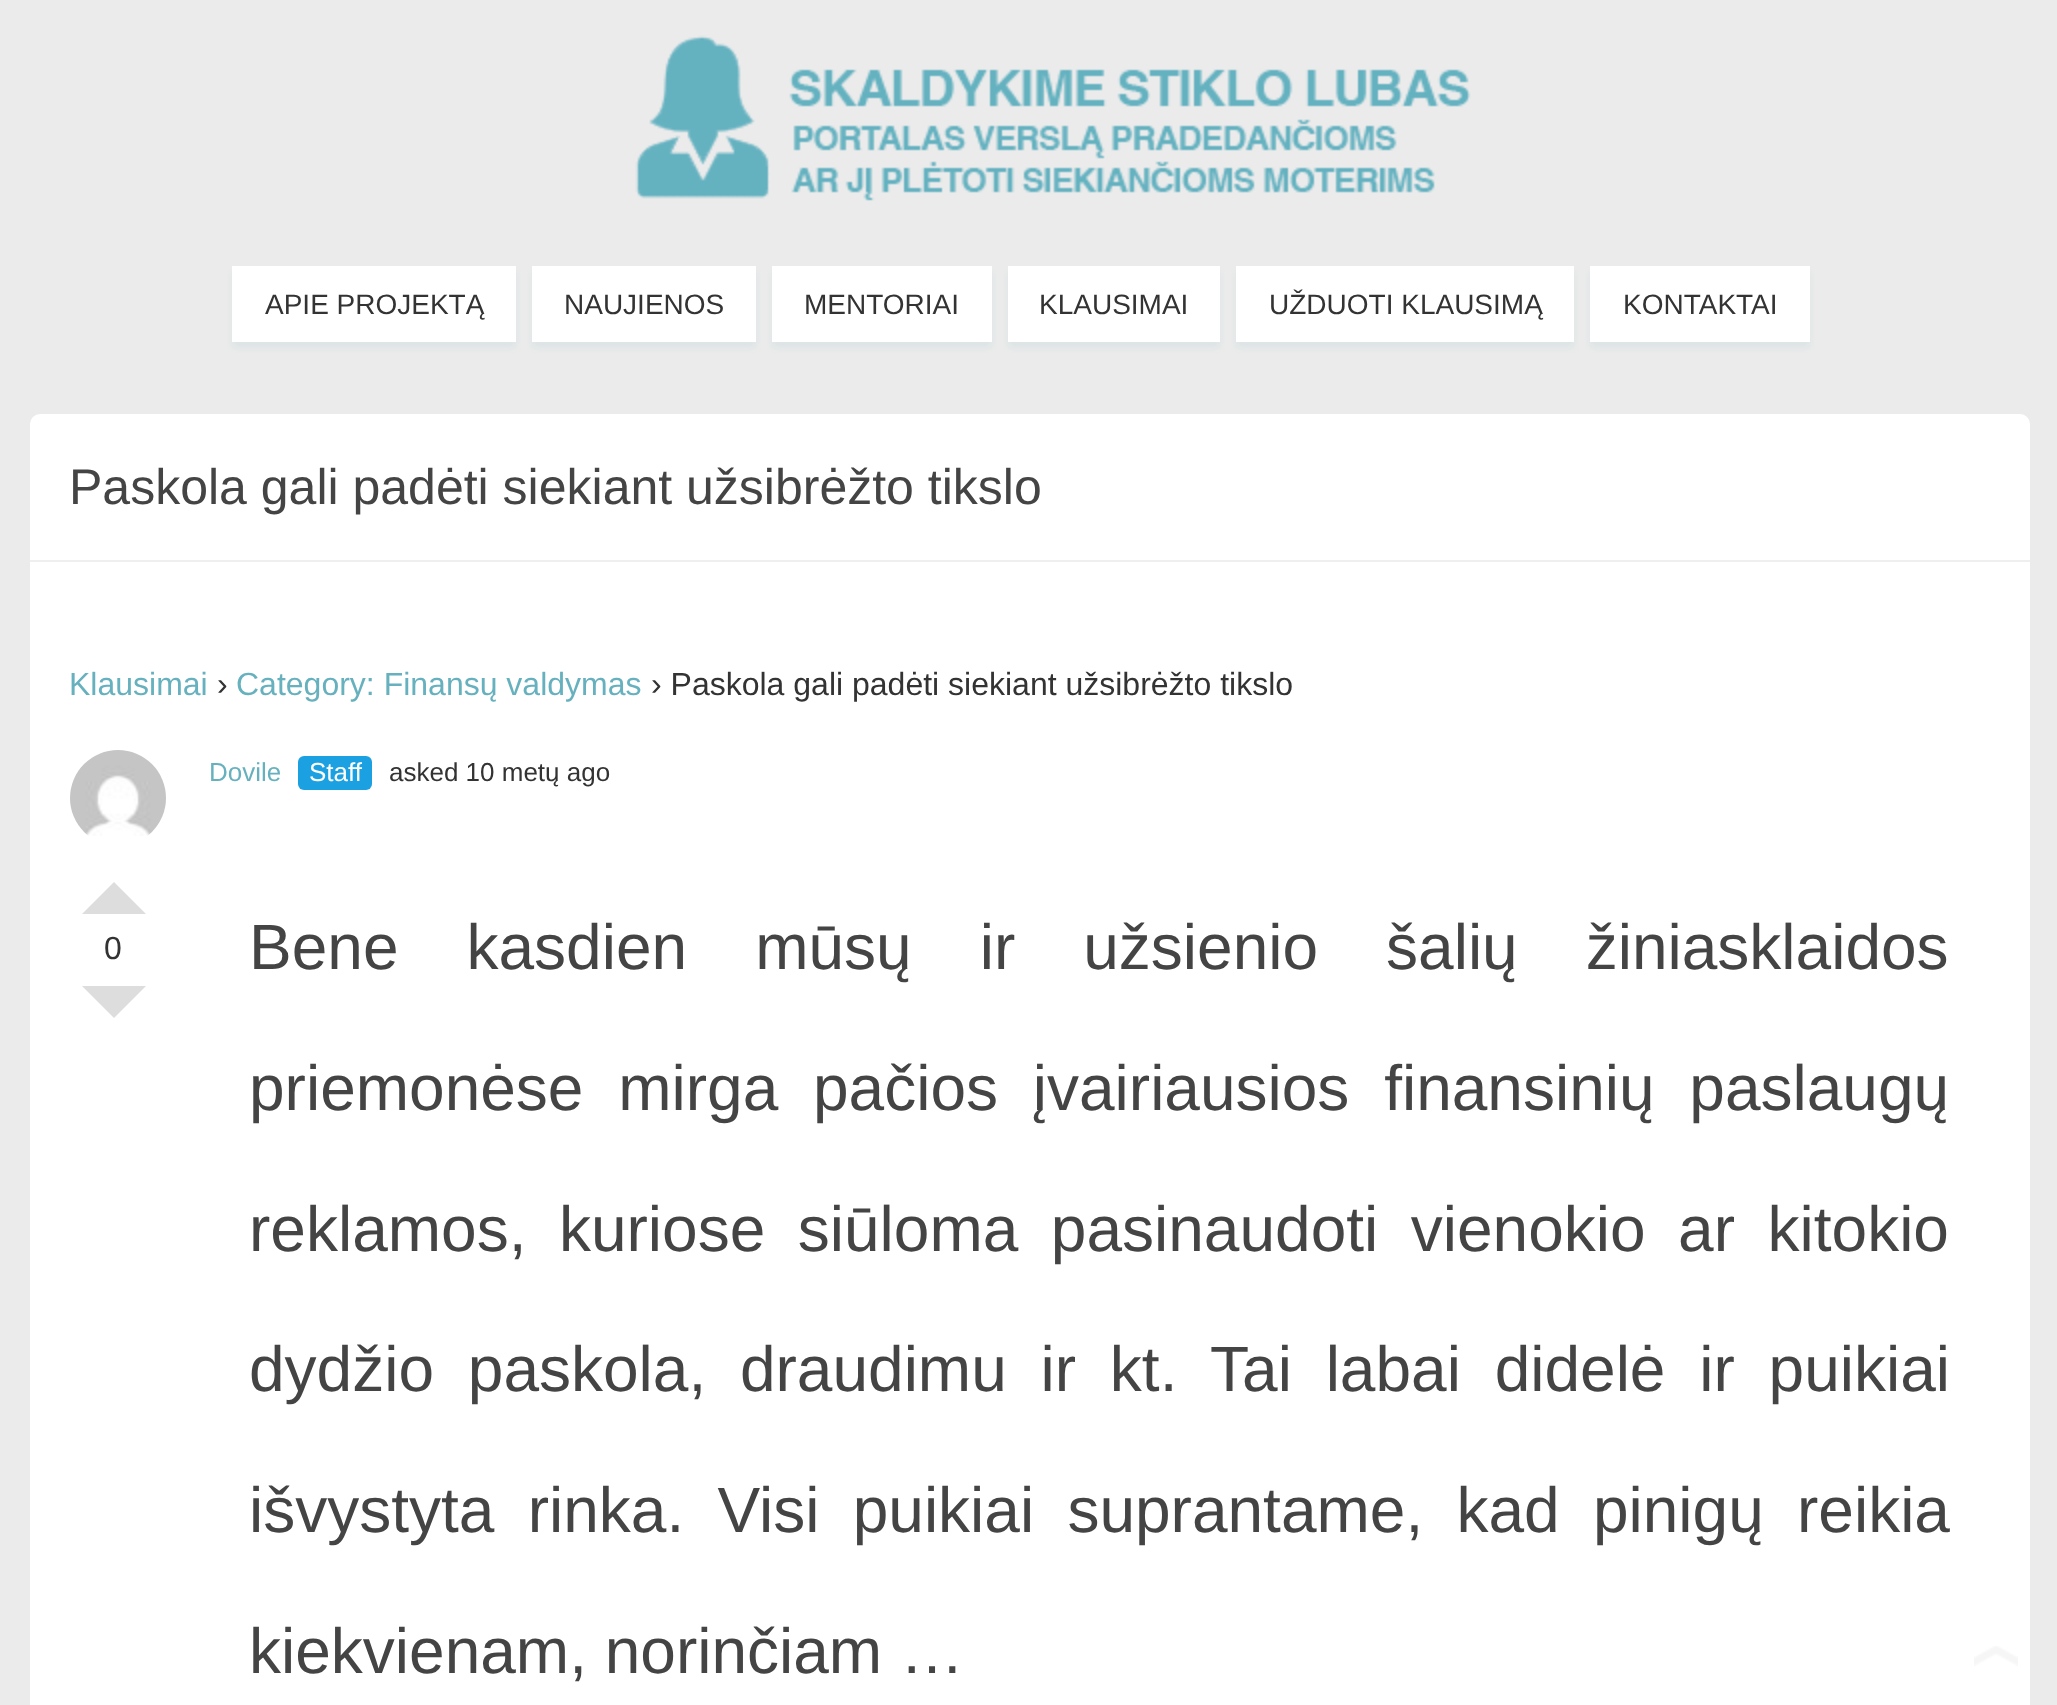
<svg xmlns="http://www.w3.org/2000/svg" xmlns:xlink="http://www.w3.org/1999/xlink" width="2057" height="1705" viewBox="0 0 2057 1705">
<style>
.cls-1{font:28px Liberation Sans;fill:#333333}
.cls-2{font:50px Liberation Sans;fill:#444444}
.cls-3{font:32px Liberation Sans;fill:#67b1bf}
.cls-4{font:32px Liberation Sans;fill:#333333}
.cls-5{font:26px Liberation Sans;fill:#67b1bf}
.cls-6{font:26px Liberation Sans;fill:#ffffff}
.cls-7{font:26px Liberation Sans;fill:#333333}
.cls-8{font:64px Liberation Sans;fill:#444444}
</style>
<rect width="100%" height="100%" fill="#ebebeb"/>
<image xlink:href="image0.png" x="635" y="35" width="836" height="166"/>
<rect fill="#66b0bd" fill-opacity="0.1" filter="blur(3px)" x="232" y="272" width="284" height="76"/>
<rect fill="#ffffff" x="232" y="266" width="284" height="76"/>
<rect fill="#66b0bd" fill-opacity="0.1" filter="blur(3px)" x="532" y="272" width="224" height="76"/>
<rect fill="#ffffff" x="532" y="266" width="224" height="76"/>
<rect fill="#66b0bd" fill-opacity="0.1" filter="blur(3px)" x="772" y="272" width="220" height="76"/>
<rect fill="#ffffff" x="772" y="266" width="220" height="76"/>
<rect fill="#66b0bd" fill-opacity="0.1" filter="blur(3px)" x="1008" y="272" width="212" height="76"/>
<rect fill="#ffffff" x="1008" y="266" width="212" height="76"/>
<rect fill="#66b0bd" fill-opacity="0.1" filter="blur(3px)" x="1236" y="272" width="338" height="76"/>
<rect fill="#ffffff" x="1236" y="266" width="338" height="76"/>
<rect fill="#66b0bd" fill-opacity="0.1" filter="blur(3px)" x="1590" y="272" width="220" height="76"/>
<rect fill="#ffffff" x="1590" y="266" width="220" height="76"/>
<rect fill="#ffffff" x="30" y="414" width="2000" height="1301" rx="10"/>
<rect fill="#efefef" x="30" y="560" width="2000" height="2"/>
<image xlink:href="image1.png" x="70" y="750" width="96" height="86"/>
<rect fill="#1ba1e2" x="298" y="756" width="74" height="34" rx="6"/>
<path fill="#dddddd" d="M146 914H82L114 882Z"/>
<path fill="#dddddd" d="M82 986H146L114 1018Z"/>
<image xlink:href="image2.png" x="1974" y="1646" width="44" height="20"/>
<text class="cls-1" x="265" y="314">APIE PROJEKTĄ</text>
<text class="cls-1" x="564" y="314">NAUJIENOS</text>
<text class="cls-1" x="804" y="314">MENTORIAI</text>
<text class="cls-1" x="1039" y="314">KLAUSIMAI</text>
<text class="cls-1" x="1269" y="314">UŽDUOTI KLAUSIMĄ</text>
<text class="cls-1" x="1623" y="314">KONTAKTAI</text>
<text class="cls-2" x="69" y="504">Paskola gali padėti siekiant užsibrėžto tikslo</text>
<text class="cls-3" x="69" y="695">Klausimai</text>
<text class="cls-4" x="217" y="695">›</text>
<text class="cls-3" x="236" y="695">Category: Finansų valdymas</text>
<text class="cls-4" x="651" y="695">› Paskola gali padėti siekiant užsibrėžto tikslo</text>
<text class="cls-5" x="209" y="781">Dovile</text>
<text class="cls-6" x="309" y="781">Staff</text>
<text class="cls-7" x="389" y="781">asked 10 metų ago</text>
<text class="cls-4" x="104" y="959">0</text>
<text class="cls-8" x="249" y="969" word-spacing="50.25">Bene kasdien mūsų ir užsienio šalių žiniasklaidos</text>
<text class="cls-8" x="249" y="1110" word-spacing="17">priemonėse mirga pačios įvairiausios finansinių paslaugų</text>
<text class="cls-8" x="249" y="1251" word-spacing="14.75">reklamos, kuriose siūloma pasinaudoti vienokio ar kitokio</text>
<text class="cls-8" x="249" y="1391" word-spacing="16">dydžio paskola, draudimu ir kt. Tai labai didelė ir puikiai</text>
<text class="cls-8" x="249" y="1532" word-spacing="15.5">išvystyta rinka. Visi puikiai suprantame, kad pinigų reikia</text>
<text class="cls-8" x="249" y="1673">kiekvienam, norinčiam …</text>
</svg>
